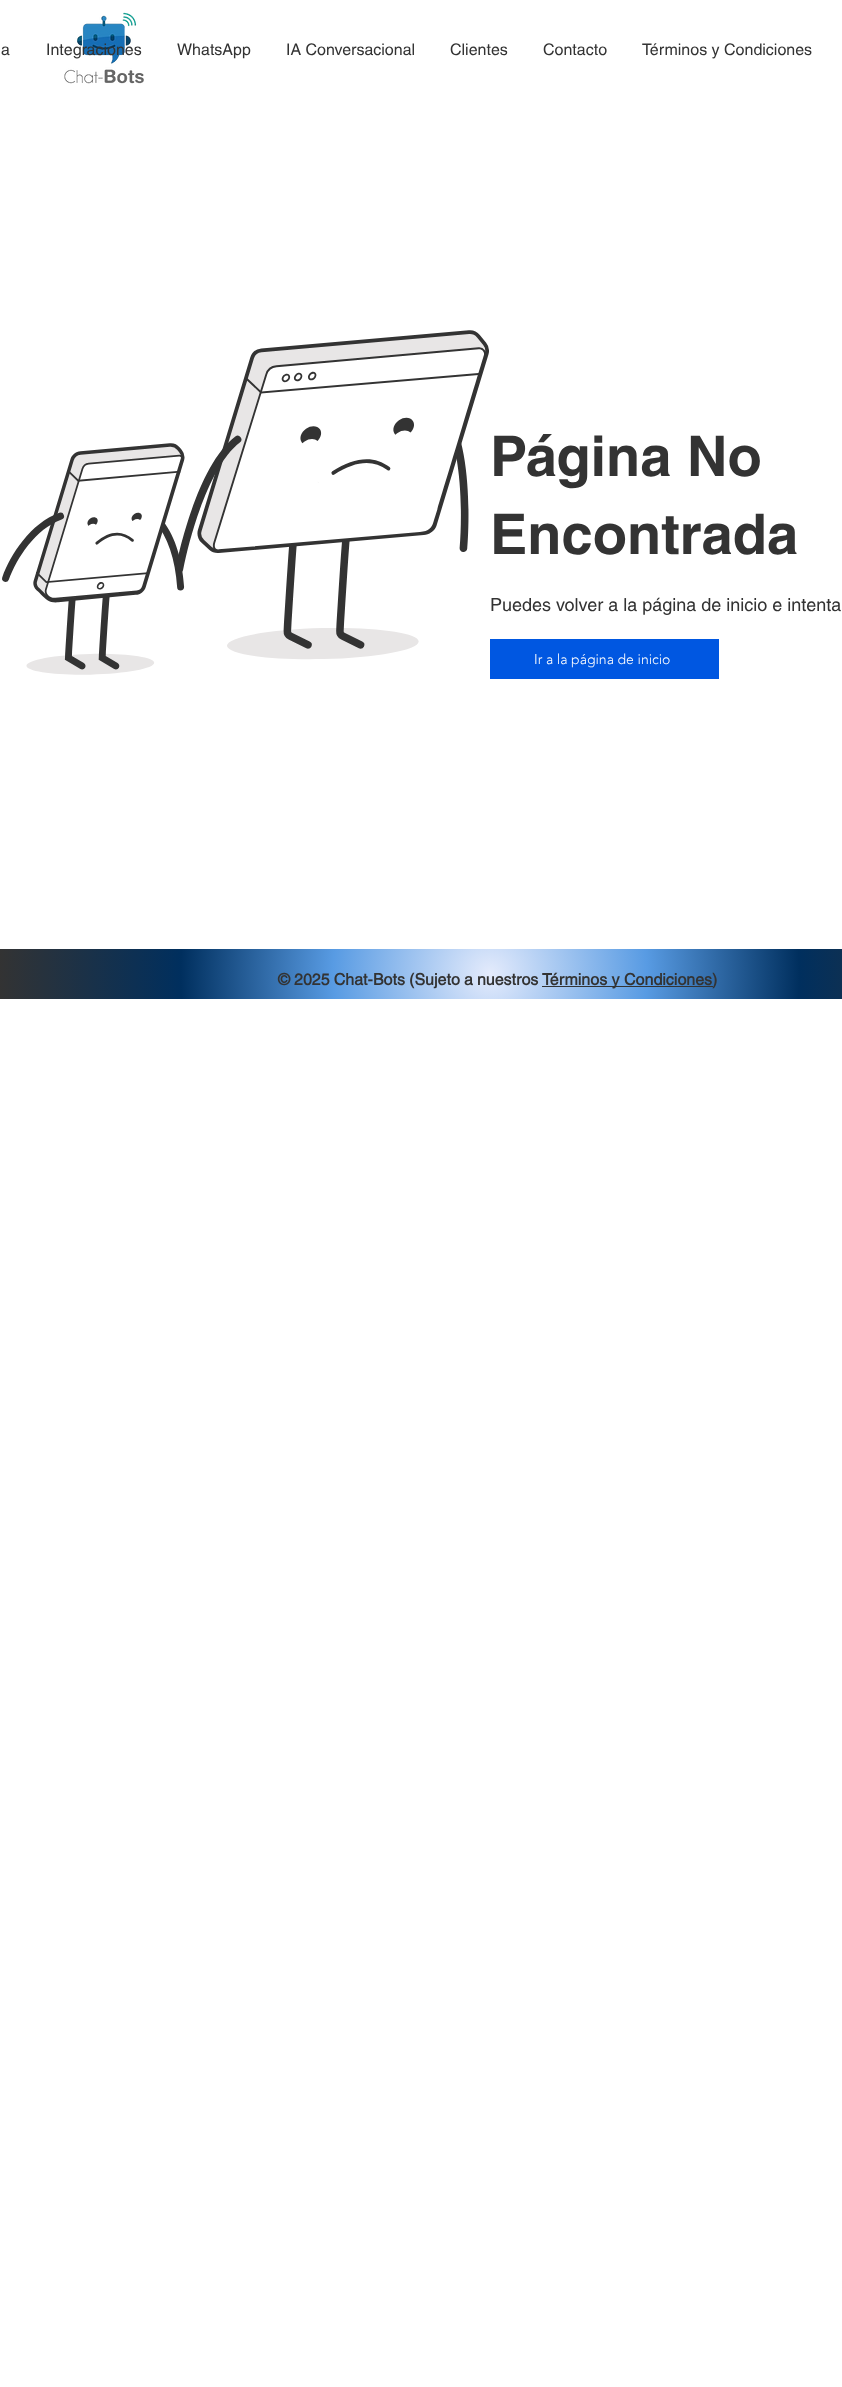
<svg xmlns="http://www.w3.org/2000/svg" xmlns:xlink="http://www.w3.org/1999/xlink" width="842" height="2387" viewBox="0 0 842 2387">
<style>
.cls-1{font:16px helvetica;fill:#333333}
.cls-2{font:bold 56px helvetica;fill:#333333}
.cls-3{font:18px helvetica;fill:#333333}
.cls-4{font:300 14px 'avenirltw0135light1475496';fill:#ffffff}
.cls-5{font:bold 16px 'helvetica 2';fill:#333333}
</style>
<defs>
<radialGradient id="g1" gradientUnits="userSpaceOnUse" cx="490" cy="974" r="491"><stop offset="0" stop-color="#e4ebfc"/><stop offset="0.32" stop-color="#589be3"/><stop offset="0.63" stop-color="#002f5e"/><stop offset="1" stop-color="#333333"/></radialGradient>
</defs>
<rect width="100%" height="100%" fill="#ffffff"/>
<image xlink:href="image0.png" x="64" y="12" width="80" height="72"/>
<image xlink:href="image1.png" x="2" y="330" width="487" height="345"/>
<rect fill="#0057e1" x="490" y="639" width="229" height="40"/>
<rect fill="url(#g1)" x="0" y="949" width="842" height="50"/>
<rect fill="#333333" x="542" y="986" width="171" height="1"/>
<text class="cls-1" x="1" y="55">a</text>
<text class="cls-1" x="46" y="55">Integraciones</text>
<text class="cls-1" x="177" y="55">WhatsApp</text>
<text class="cls-1" x="286" y="55">IA Conversacional</text>
<text class="cls-1" x="450" y="55">Clientes</text>
<text class="cls-1" x="543" y="55">Contacto</text>
<text class="cls-1" x="642" y="55">Términos y Condiciones</text>
<text class="cls-2"><tspan x="490" y="476">Página No</tspan><tspan x="490" y="554">Encontrada</tspan></text>
<text class="cls-3" x="490" y="611">Puedes volver a la página de inicio e intenta</text>
<text class="cls-4" x="534" y="664">Ir a la página de inicio</text>
<text class="cls-5" x="278" y="985" word-spacing="-0.25">© 2025 Chat-Bots (Sujeto a nuestros</text>
<text class="cls-5" x="542" y="985">Términos y Condiciones)</text>
</svg>
